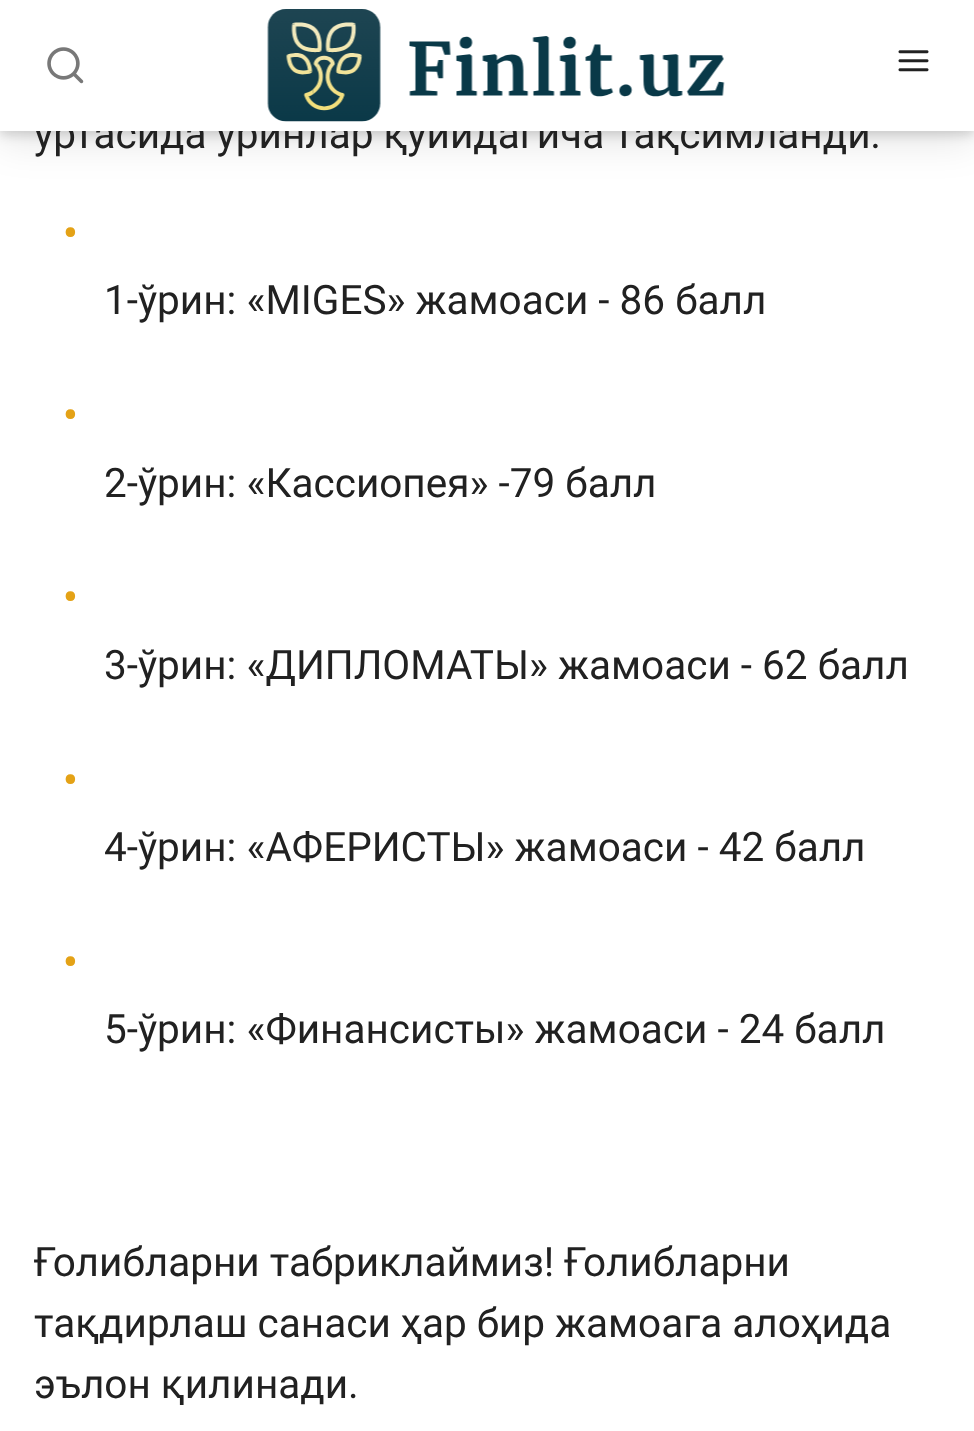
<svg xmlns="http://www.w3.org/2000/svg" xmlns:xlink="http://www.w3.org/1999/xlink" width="974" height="1431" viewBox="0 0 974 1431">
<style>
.cls-1{font:40.5px Roboto;fill:#212121}
.cls-2{font:bold 40.5px Roboto;fill:#e4a216}
</style>
<rect width="100%" height="100%" fill="#ffffff"/>
<rect fill="#000000" fill-opacity="0.15" filter="blur(5.5px)" x="0" y="5" width="974" height="130"/>
<rect fill="#000000" fill-opacity="0.1" filter="blur(19px)" x="0" y="11" width="974" height="131"/>
<text class="cls-1" x="34" y="148">ўртасида ўринлар қуйидагича тақсимланди:</text>
<rect fill="#ffffff" x="0" y="0" width="974" height="131"/>
<image xlink:href="image0.png" x="47" y="47" width="37" height="37"/>
<image xlink:href="image2.png" x="898" y="50" width="31" height="22"/>
<image xlink:href="image1.png" x="267" y="9" width="458" height="113"/>
<text class="cls-2" x="63" y="247">•</text>
<text class="cls-1" x="104" y="314">1-ўрин: «MIGES» жамоаси - 86 балл</text>
<text class="cls-2" x="63" y="429">•</text>
<text class="cls-1" x="104" y="497">2-ўрин: «Кассиопея» -79 балл</text>
<text class="cls-2" x="63" y="611">•</text>
<text class="cls-1" x="104" y="679">3-ўрин: «ДИПЛОМАТЫ» жамоаси - 62 балл</text>
<text class="cls-2" x="63" y="794">•</text>
<text class="cls-1" x="104" y="861">4-ўрин: «АФЕРИСТЫ» жамоаси - 42 балл</text>
<text class="cls-2" x="63" y="976">•</text>
<text class="cls-1" x="104" y="1043">5-ўрин: «Финансисты» жамоаси - 24 балл</text>
<text class="cls-1"><tspan x="34" y="1276">Ғолибларни табриклаймиз! Ғолибларни</tspan><tspan x="34" y="1337">тақдирлаш санаси ҳар бир жамоага алоҳида</tspan><tspan x="34" y="1398">эълон қилинади.</tspan></text>
</svg>
